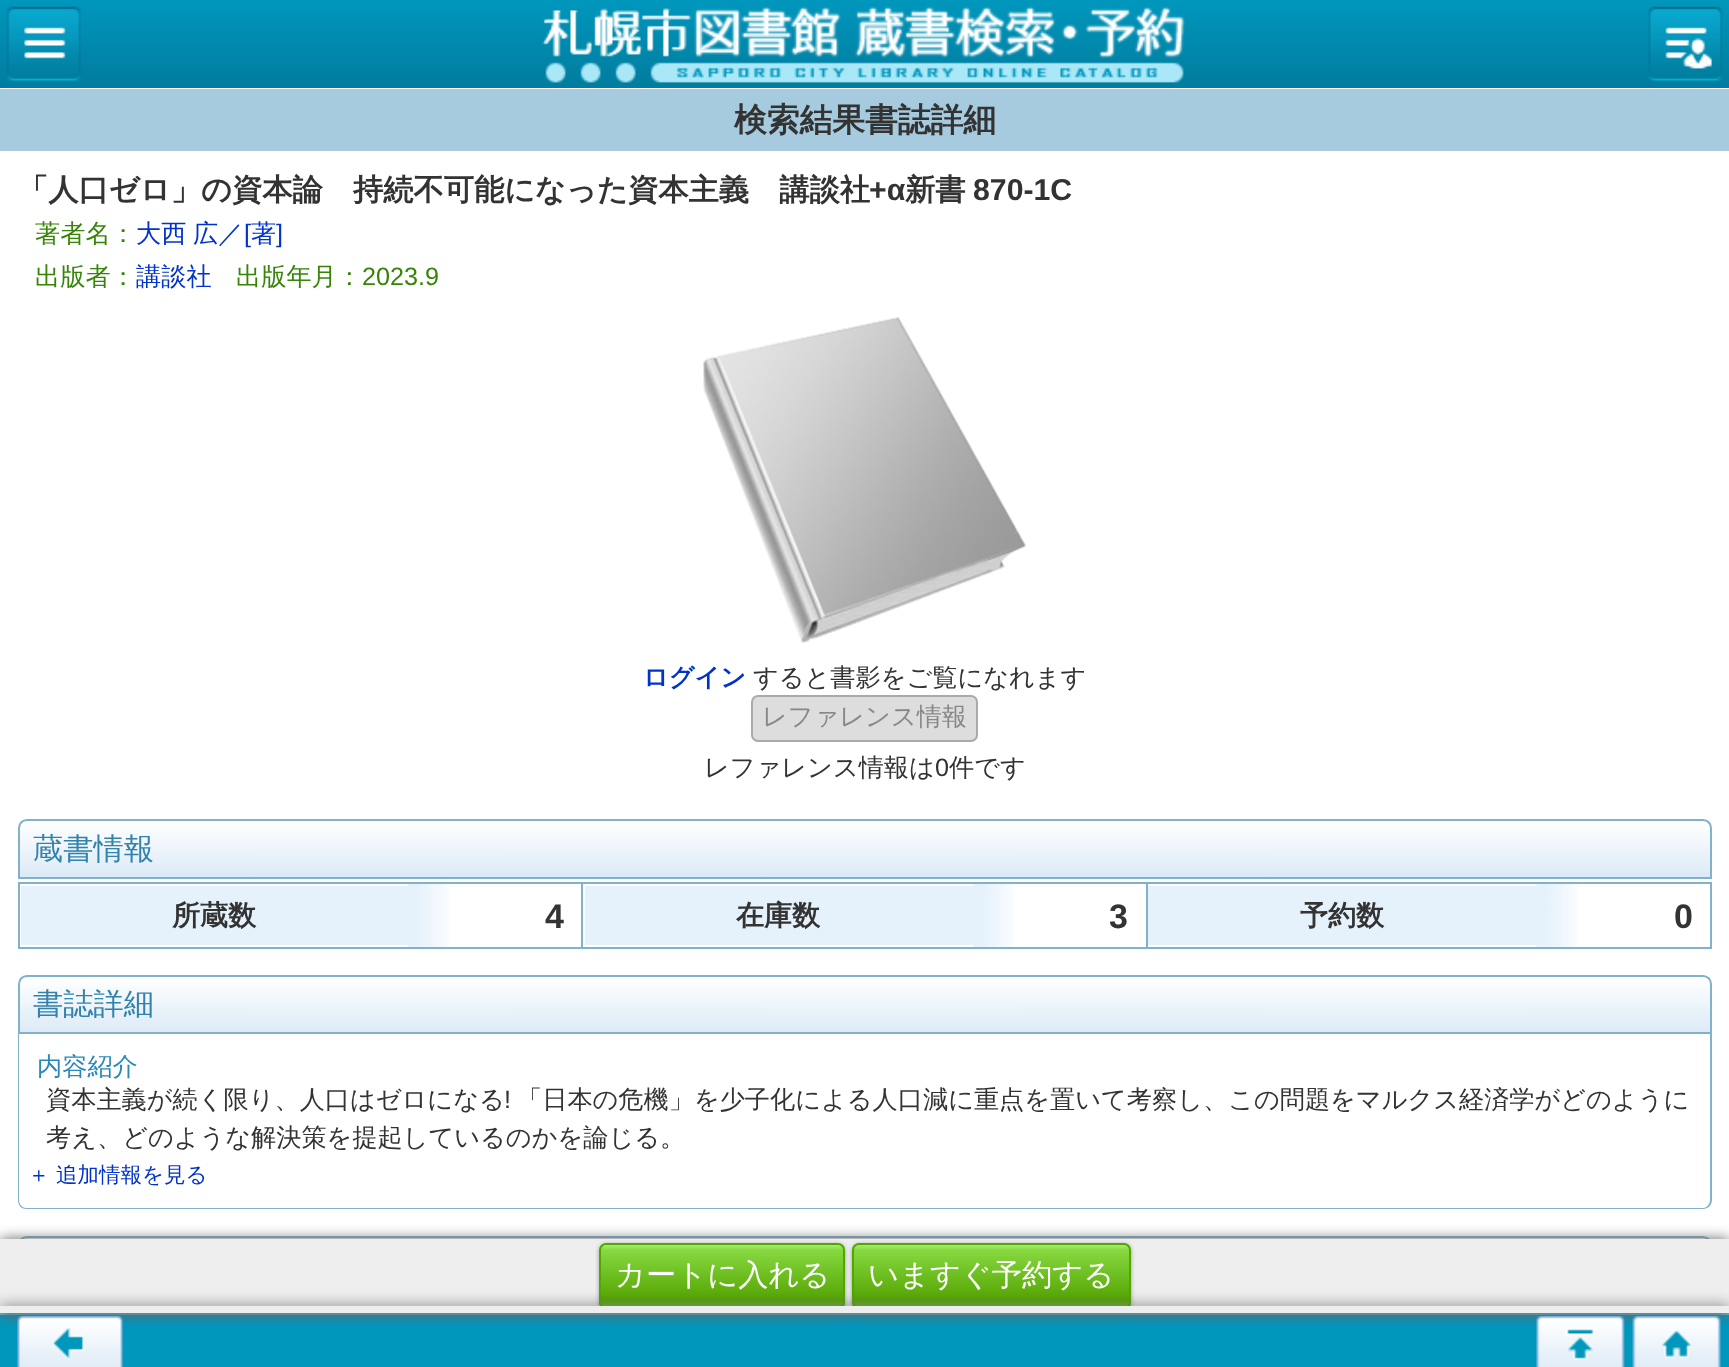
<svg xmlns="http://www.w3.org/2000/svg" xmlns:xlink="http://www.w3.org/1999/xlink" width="1729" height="1367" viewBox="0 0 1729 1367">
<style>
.cls-1{font:bold 32.75px WenQuanYi Zen Hei;fill:#333333}
.cls-2{font:bold 30.25px WenQuanYi Zen Hei;fill:#333333}
.cls-3{font:bold 30.25px Liberation Sans;fill:#333333}
.cls-4{font:500 25.2px WenQuanYi Zen Hei;fill:#368507}
.cls-5{font:500 25.2px WenQuanYi Zen Hei;fill:#0033cc}
.cls-6{font:25.2px Liberation Sans;fill:#0033cc}
.cls-7{font:25.2px Liberation Sans;fill:#368507}
.cls-8{font:bold 25.2px WenQuanYi Zen Hei;fill:#0033cc}
.cls-9{font:500 25.2px WenQuanYi Zen Hei;fill:#333333}
.cls-10{font:500 25.2px WenQuanYi Zen Hei;fill:#888888}
.cls-11{font:25.2px Liberation Sans;fill:#333333}
.cls-12{font:500 30.25px WenQuanYi Zen Hei;fill:#3183ad}
.cls-13{font:bold 28px WenQuanYi Zen Hei;fill:#333333}
.cls-14{font:bold 34px Liberation Sans;fill:#333333}
.cls-15{font:500 25.2px WenQuanYi Zen Hei;fill:#2987bc}
.cls-16{font:500 21.5px WenQuanYi Zen Hei;fill:#0033cc}
.cls-17{font:500 30.25px WenQuanYi Zen Hei;fill:#ffffff}
</style>
<defs>
<linearGradient id="g1" gradientUnits="userSpaceOnUse" x1="865" y1="0" x2="865" y2="88"><stop offset="0" stop-color="#0097bd"/><stop offset="1" stop-color="#007c9e"/></linearGradient>
<clipPath id="clip1"><path d="M27 819H1703C1708 819 1712 823 1712 828V879H18V828C18 823 22 819 27 819Z"/></clipPath>
<linearGradient id="g2" gradientUnits="userSpaceOnUse" x1="19" y1="821" x2="19" y2="877"><stop offset="0" stop-color="#ffffff"/><stop offset="1" stop-color="#dceaf6"/></linearGradient>
<clipPath id="clip2"><path d="M27 975H1703C1708 975 1712 979 1712 984V1034H18V984C18 979 22 975 27 975Z"/></clipPath>
<linearGradient id="g3" gradientUnits="userSpaceOnUse" x1="19" y1="977" x2="19" y2="1033"><stop offset="0" stop-color="#ffffff"/><stop offset="1" stop-color="#dceaf6"/></linearGradient>
<clipPath id="clip3"><path d="M27 1236H1703C1708 1236 1712 1240 1712 1245V1297H18V1245C18 1240 22 1236 27 1236Z"/></clipPath>
<linearGradient id="g4" gradientUnits="userSpaceOnUse" x1="19" y1="1237" x2="19" y2="1295"><stop offset="0" stop-color="#ffffff"/><stop offset="1" stop-color="#dceaf6"/></linearGradient>
<clipPath id="clip4"><rect x="599" y="1243" width="246" height="66" rx="7"/></clipPath>
<linearGradient id="g5" gradientUnits="userSpaceOnUse" x1="722" y1="1244" x2="722" y2="1307"><stop offset="0" stop-color="#abf176"/><stop offset="0.1" stop-color="#87d83f"/><stop offset="0.9" stop-color="#54a401"/><stop offset="1" stop-color="#6cb934"/></linearGradient>
<clipPath id="clip5"><rect x="852" y="1243" width="279" height="66" rx="7"/></clipPath>
<linearGradient id="g6" gradientUnits="userSpaceOnUse" x1="991" y1="1244" x2="991" y2="1307"><stop offset="0" stop-color="#abf176"/><stop offset="0.1" stop-color="#87d83f"/><stop offset="0.9" stop-color="#54a401"/><stop offset="1" stop-color="#6cb934"/></linearGradient>
</defs>
<rect width="100%" height="100%" fill="#ffffff"/>
<rect fill="url(#g1)" x="0" y="0" width="1729" height="88"/>
<image xlink:href="image0.png" x="6" y="6" width="75" height="75"/>
<image xlink:href="image1.png" x="1648" y="6" width="75" height="75"/>
<image xlink:href="image2.png" x="542" y="6" width="643" height="77"/>
<rect fill="#a6cbde" x="0" y="89" width="1729" height="62"/>
<image xlink:href="image3.png" x="703" y="317" width="324" height="326"/>
<rect fill="#dddddd" stroke="#aaaaaa" stroke-width="2" x="752" y="696" width="225" height="45" rx="6"/>
<g clip-path="url(#clip1)">
<rect fill="url(#g2)" x="18" y="821" width="1694" height="56"/>
</g>
<path fill="none" stroke="#81b2cb" stroke-width="2" d="M27 820H1703C1707.5 820 1711 823.5 1711 828V878H19V828C19 823.5 22.5 820 27 820Z"/>
<rect fill="#e6f2fb" x="21" y="886" width="387" height="59"/>
<rect fill="#81b2cb" x="1146" y="882" width="566" height="2"/>
<rect fill="#81b2cb" x="1710" y="882" width="2" height="67"/>
<rect fill="#81b2cb" x="1146" y="947" width="566" height="2"/>
<rect fill="#81b2cb" x="1146" y="882" width="2" height="67"/>
<rect fill="#81b2cb" x="581" y="882" width="567" height="2"/>
<rect fill="#81b2cb" x="581" y="947" width="567" height="2"/>
<rect fill="#81b2cb" x="581" y="882" width="2" height="67"/>
<rect fill="#81b2cb" x="18" y="882" width="565" height="2"/>
<rect fill="#81b2cb" x="18" y="947" width="565" height="2"/>
<rect fill="#81b2cb" x="18" y="882" width="2" height="67"/>
<image xlink:href="image4.png" x="407" y="884" width="43" height="63"/>
<rect fill="#e6f2fb" x="585" y="886" width="388" height="59"/>
<image xlink:href="image5.png" x="973" y="884" width="42" height="63"/>
<rect fill="#e6f2fb" x="1148" y="886" width="389" height="59"/>
<image xlink:href="image6.png" x="1536" y="884" width="42" height="63"/>
<g clip-path="url(#clip2)">
<rect fill="url(#g3)" x="18" y="977" width="1694" height="55"/>
</g>
<path fill="none" stroke="#81b2cb" stroke-width="2" d="M27 976H1703C1707.5 976 1711 979.5 1711 984V1033H19V984C19 979.5 22.5 976 27 976Z"/>
<path fill="#81b2cb" fill-rule="evenodd" d="M18 1034H1712V1200C1712 1205 1708 1209 1703 1209H26C21 1209 18 1205 18 1200ZM19 1034H1710V1200C1710 1204 1707 1208 1703 1208H26C22 1208 19 1204 19 1200Z"/>
<g clip-path="url(#clip3)">
<rect fill="url(#g4)" x="20" y="1237" width="1690" height="2"/>
</g>
<path fill="none" stroke="#81b2cb" stroke-width="2" d="M27 1237H1703C1707.5 1237 1711 1240.5 1711 1245V1296H19V1245C19 1240.5 22.5 1237 27 1237Z"/>
<rect fill="#0097bd" x="0" y="1315" width="1729" height="52"/>
<rect fill="#52cceb" x="0" y="1313" width="1729" height="2"/>
<rect fill="#666666" filter="blur(7px)" x="0" y="1239" width="1729" height="74"/>
<rect fill="#eeeeee" x="0" y="1239" width="1729" height="67"/>
<rect fill="#999999" filter="blur(2px)" x="599" y="1244" width="246" height="67" rx="7"/>
<g clip-path="url(#clip4)">
<rect fill="url(#g5)" x="599" y="1244" width="246" height="62"/>
</g>
<rect fill="none" stroke="#4fa700" stroke-width="2" x="600" y="1244" width="244" height="64" rx="6"/>
<rect fill="#999999" filter="blur(2px)" x="852" y="1244" width="279" height="67" rx="7"/>
<g clip-path="url(#clip5)">
<rect fill="url(#g6)" x="852" y="1244" width="279" height="62"/>
</g>
<rect fill="none" stroke="#4fa700" stroke-width="2" x="853" y="1244" width="277" height="64" rx="6"/>
<rect fill="#666666" filter="blur(7px)" x="0" y="1306" width="1729" height="7"/>
<rect fill="#eeeeee" x="0" y="1306" width="1729" height="7"/>
<image xlink:href="image7.png" x="17" y="1316" width="106" height="51"/>
<image xlink:href="image8.png" x="1536" y="1316" width="89" height="51"/>
<image xlink:href="image9.png" x="1632" y="1316" width="89" height="51"/>
<text class="cls-1" x="734" y="131">検索結果書誌詳細</text>
<text class="cls-2" x="18" y="200">「人口ゼロ」の資本論　持続不可能になった資本主義　講談社</text>
<text class="cls-3" x="869" y="200">+α</text>
<text class="cls-2" x="905" y="200">新書</text>
<text class="cls-3" x="973" y="200">870-1C</text>
<text class="cls-4" x="35" y="242">著者名：</text>
<text class="cls-5" x="136" y="242" word-spacing="-1">大西 広／</text>
<text class="cls-6" x="244" y="242">[</text>
<text class="cls-5" x="251" y="242">著</text>
<text class="cls-6" x="276" y="242">]</text>
<text class="cls-4" x="35" y="285">出版者：</text>
<text class="cls-5" x="136" y="285">講談社</text>
<text class="cls-4" x="236" y="285">出版年月：</text>
<text class="cls-7" x="362" y="285">2023.9</text>
<text class="cls-8" x="643" y="686">ログイン</text>
<text class="cls-9" x="753" y="686">すると書影をご覧になれます</text>
<text class="cls-10" x="762" y="725">レファレンス情報</text>
<text class="cls-9" x="704" y="776">レファレンス情報は</text>
<text class="cls-11" x="935" y="776">0</text>
<text class="cls-9" x="949" y="776">件です</text>
<text class="cls-12" x="33" y="859">蔵書情報</text>
<text class="cls-13" x="172" y="925">所蔵数</text>
<text class="cls-14" x="545" y="928">4</text>
<text class="cls-13" x="736" y="925">在庫数</text>
<text class="cls-14" x="1109" y="928">3</text>
<text class="cls-13" x="1300" y="925">予約数</text>
<text class="cls-14" x="1674" y="928">0</text>
<text class="cls-12" x="33" y="1014">書誌詳細</text>
<text class="cls-15" x="37" y="1075">内容紹介</text>
<text class="cls-9" x="46" y="1108">資本主義が続く限り、人口はゼロになる</text>
<text class="cls-11" x="504" y="1108">!</text>
<text class="cls-9" x="517" y="1108">「日本の危機」を少子化による人口減に重点を置いて考察し、この問題をマルクス経済学がどのように</text>
<text class="cls-9" x="46" y="1146">考え、どのような解決策を提起しているのかを論じる。</text>
<text class="cls-16" x="28" y="1182">＋ 追加情報を見る</text>
<text class="cls-17" x="615" y="1285">カートに入れる</text>
<text class="cls-17" x="868" y="1285">いますぐ予約する</text>
</svg>
